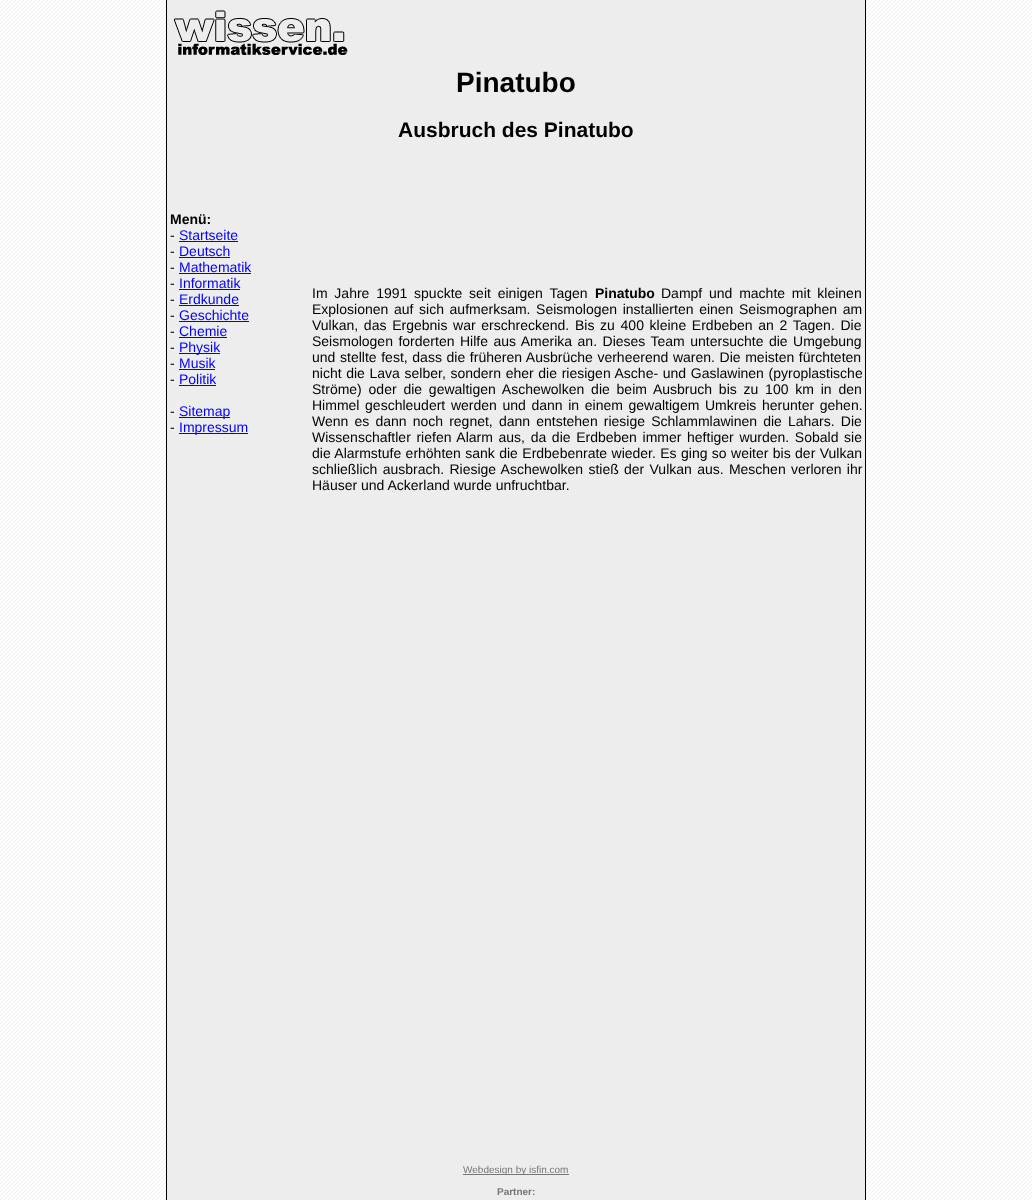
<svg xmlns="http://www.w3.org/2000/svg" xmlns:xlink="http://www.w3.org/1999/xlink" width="1032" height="1200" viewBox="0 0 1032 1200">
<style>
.cls-1{font:bold 28px Liberation Sans;fill:#000000}
.cls-2{font:bold 21px Liberation Sans;fill:#000000}
.cls-3{font:bold 14px Liberation Sans;fill:#000000}
.cls-4{font:14px Liberation Sans;fill:#000000}
.cls-5{font:14px Liberation Sans;fill:#0000ff}
.cls-6{font:10px Liberation Sans;fill:#767676}
.cls-7{font:bold 10px Liberation Sans;fill:#767676}
</style>
<rect width="100%" height="100%" fill="#ffffff"/>
<image xlink:href="image0.png" x="0" y="0" width="1032" height="1200"/>
<rect fill="#ededed" x="167" y="0" width="698" height="1200"/>
<rect fill="#000000" x="865" y="0" width="1" height="1200"/>
<rect fill="#000000" x="166" y="0" width="1" height="1200"/>
<image xlink:href="image1.png" x="173" y="10" width="175" height="45"/>
<rect fill="#0000ff" x="179" y="241" width="59" height="1"/>
<rect fill="#0000ff" x="179" y="257" width="51" height="1"/>
<rect fill="#0000ff" x="179" y="273" width="72" height="1"/>
<rect fill="#0000ff" x="179" y="289" width="61" height="1"/>
<rect fill="#0000ff" x="179" y="305" width="60" height="1"/>
<rect fill="#0000ff" x="179" y="321" width="70" height="1"/>
<rect fill="#0000ff" x="179" y="337" width="48" height="1"/>
<rect fill="#0000ff" x="179" y="353" width="41" height="1"/>
<rect fill="#0000ff" x="179" y="369" width="36" height="1"/>
<rect fill="#0000ff" x="179" y="385" width="37" height="1"/>
<rect fill="#0000ff" x="179" y="417" width="51" height="1"/>
<rect fill="#0000ff" x="179" y="433" width="69" height="1"/>
<rect fill="#767676" x="463" y="1174" width="106" height="1"/>
<text class="cls-1" x="456" y="92">Pinatubo</text>
<text class="cls-2" x="398" y="137">Ausbruch des Pinatubo</text>
<text class="cls-3" x="170" y="224">Menü:</text>
<text class="cls-4" x="170" y="240">-</text>
<text class="cls-5" x="179" y="240">Startseite</text>
<text class="cls-4" x="170" y="256">-</text>
<text class="cls-5" x="179" y="256">Deutsch</text>
<text class="cls-4" x="170" y="272">-</text>
<text class="cls-5" x="179" y="272">Mathematik</text>
<text class="cls-4" x="170" y="288">-</text>
<text class="cls-5" x="179" y="288">Informatik</text>
<text class="cls-4" x="170" y="304">-</text>
<text class="cls-5" x="179" y="304">Erdkunde</text>
<text class="cls-4" x="170" y="320">-</text>
<text class="cls-5" x="179" y="320">Geschichte</text>
<text class="cls-4" x="170" y="336">-</text>
<text class="cls-5" x="179" y="336">Chemie</text>
<text class="cls-4" x="170" y="352">-</text>
<text class="cls-5" x="179" y="352">Physik</text>
<text class="cls-4" x="170" y="368">-</text>
<text class="cls-5" x="179" y="368">Musik</text>
<text class="cls-4" x="170" y="384">-</text>
<text class="cls-5" x="179" y="384">Politik</text>
<text class="cls-4" x="170" y="416">-</text>
<text class="cls-5" x="179" y="416">Sitemap</text>
<text class="cls-4" x="170" y="432">-</text>
<text class="cls-5" x="179" y="432">Impressum</text>
<text class="cls-4" x="312" y="298" word-spacing="2.9">Im Jahre 1991 spuckte seit einigen Tagen</text>
<text class="cls-3" x="595" y="298">Pinatubo</text>
<text class="cls-4" x="661" y="298" word-spacing="2.9">Dampf und machte mit kleinen</text>
<text class="cls-4"><tspan x="312" y="314" word-spacing="1.75">Explosionen auf sich aufmerksam. Seismologen installierten einen Seismographen am</tspan><tspan x="312" y="330" word-spacing="1.8">Vulkan, das Ergebnis war erschreckend. Bis zu 400 kleine Erdbeben an 2 Tagen. Die</tspan><tspan x="312" y="346" word-spacing="1.6">Seismologen forderten Hilfe aus Amerika an. Dieses Team untersuchte die Umgebung</tspan><tspan x="312" y="362" word-spacing="0.75">und stellte fest, dass die früheren Ausbrüche verheerend waren. Die meisten fürchteten</tspan><tspan x="312" y="378" word-spacing="0.75">nicht die Lava selber, sondern eher die riesigen Asche- und Gaslawinen (pyroplastische</tspan><tspan x="312" y="394" word-spacing="2.9">Ströme) oder die gewaltigen Aschewolken die beim Ausbruch bis zu 100 km in den</tspan><tspan x="312" y="410" word-spacing="1.75">Himmel geschleudert werden und dann in einem gewaltigem Umkreis herunter gehen.</tspan><tspan x="312" y="426" word-spacing="2.25">Wenn es dann noch regnet, dann entstehen riesige Schlammlawinen die Lahars. Die</tspan><tspan x="312" y="442" word-spacing="1.75">Wissenschaftler riefen Alarm aus, da die Erdbeben immer heftiger wurden. Sobald sie</tspan><tspan x="312" y="458" word-spacing="0.5">die Alarmstufe erhöhten sank die Erdbebenrate wieder. Es ging so weiter bis der Vulkan</tspan><tspan x="312" y="474" word-spacing="1.4">schließlich ausbrach. Riesige Aschewolken stieß der Vulkan aus. Meschen verloren ihr</tspan><tspan x="312" y="490">Häuser und Ackerland wurde unfruchtbar.</tspan></text>
<text class="cls-6" x="463" y="1173">Webdesign by isfin.com</text>
<text class="cls-7" x="497" y="1195">Partner:</text>
</svg>
